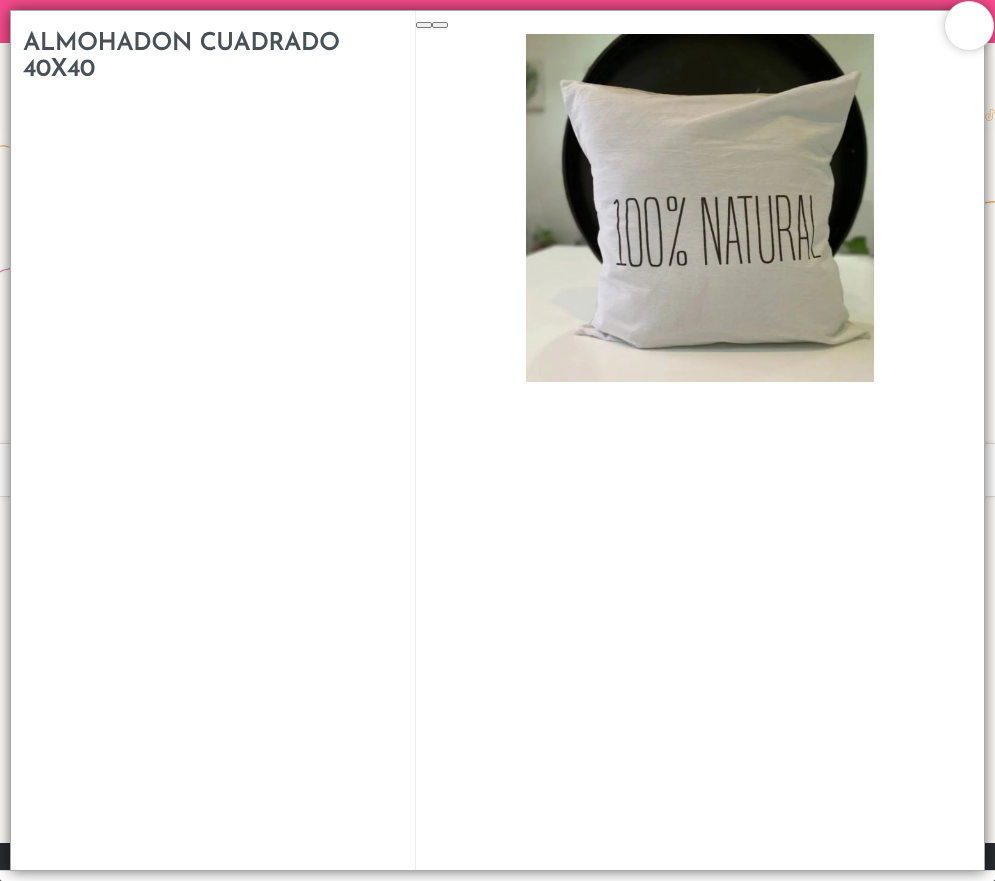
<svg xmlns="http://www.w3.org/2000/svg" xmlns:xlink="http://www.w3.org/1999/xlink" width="995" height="881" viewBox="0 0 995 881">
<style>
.cls-1{font:bold 24px Josefin Sans;fill:#495057}
</style>
<rect width="100%" height="100%" fill="#fffdf9"/>
<rect fill="#f74c8f" x="0" y="0" width="995" height="43"/>
<image xlink:href="image0.png" x="985" y="109" width="10" height="12"/>
<image xlink:href="image1.png" x="0" y="132" width="995" height="311"/>
<rect fill="#000000" fill-opacity="0.1" filter="blur(2px)" x="0" y="443" width="995" height="54"/>
<rect fill="#ffffff" x="0" y="444" width="995" height="52"/>
<rect fill="#dddddd" x="0" y="443" width="995" height="1"/>
<rect fill="#dddddd" x="0" y="496" width="995" height="1"/>
<rect fill="#292c2f" x="0" y="843" width="995" height="38"/>
<path fill="#ffffff" d="M0 870H995V879C995 880 994 881 993 881H2C1 881 0 880 0 879Z"/>
<rect fill="#dddddd" x="0" y="870" width="995" height="1"/>
<rect fill="#000000" fill-opacity="0.6" filter="blur(7.5px)" x="10" y="10" width="975" height="861"/>
<rect fill="#ffffff" stroke="#aaaaaa" x="10.5" y="10.5" width="974" height="860"/>
<rect fill="#eeeeee" x="415" y="11" width="1" height="859"/>
<rect fill="#efefef" stroke="#767676" x="416.5" y="22.5" width="15" height="5" rx="1.5"/>
<rect fill="#efefef" stroke="#767676" x="432.5" y="22.5" width="15" height="5" rx="1.5"/>
<image xlink:href="image2.png" x="526" y="34" width="348" height="348"/>
<rect fill="#000000" fill-opacity="0.2" filter="blur(5px)" x="944" y="1" width="50" height="50" rx="25"/>
<circle fill="#ffffff" stroke="#dddddd" cx="969" cy="26" r="24.5"/>
<text class="cls-1"><tspan x="23" y="50">ALMOHADON CUADRADO</tspan><tspan x="23" y="76">40X40</tspan></text>
</svg>
